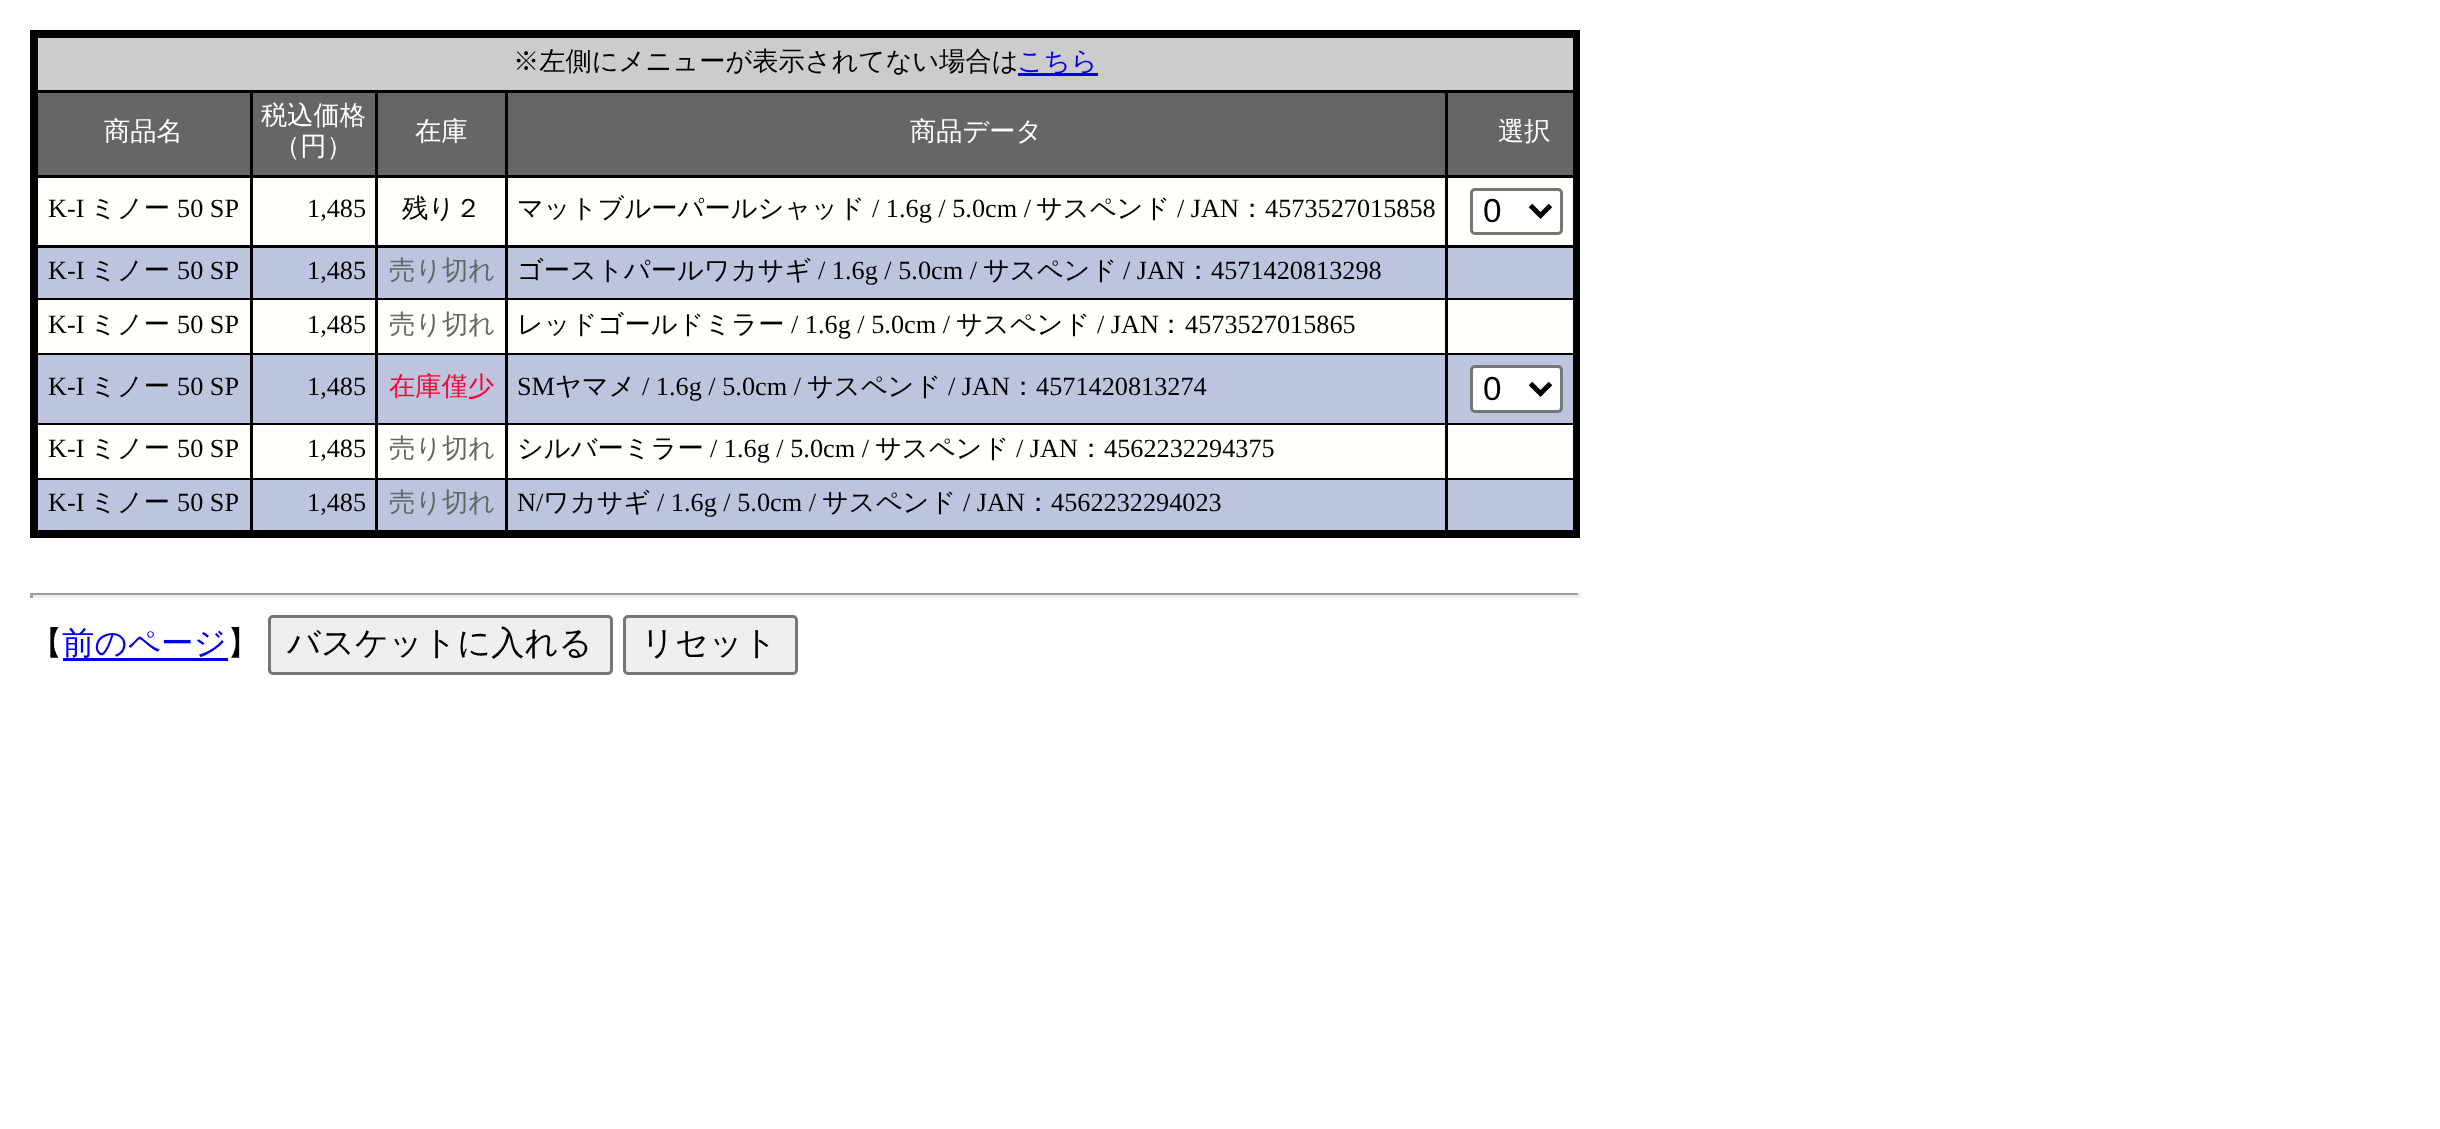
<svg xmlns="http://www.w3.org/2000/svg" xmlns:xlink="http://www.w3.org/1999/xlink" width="2440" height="1129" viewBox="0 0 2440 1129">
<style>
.cls-1{font:500 26.25px WenQuanYi Zen Hei;fill:#000000}
.cls-2{font:500 26.25px WenQuanYi Zen Hei;fill:#0000ee}
.cls-3{font:500 26.25px WenQuanYi Zen Hei;fill:#ffffff}
.cls-4{font:26.25px Liberation Serif;fill:#000000}
.cls-5{font:33.25px Liberation Sans;fill:#000000}
.cls-6{font:500 26.25px WenQuanYi Zen Hei;fill:#666666}
.cls-7{font:500 26.25px WenQuanYi Zen Hei;fill:#ff0033}
.cls-8{font:500 32.5px WenQuanYi Zen Hei;fill:#000000}
.cls-9{font:500 32.5px WenQuanYi Zen Hei;fill:#0000ee}
.cls-10{font:500 33.25px WenQuanYi Zen Hei;fill:#000000}
</style>
<rect width="100%" height="100%" fill="#ffffff"/>
<rect fill="#000000" x="30" y="30" width="1550" height="508"/>
<rect fill="#cccccc" x="38" y="38" width="1535" height="52"/>
<rect fill="#0000ee" x="1018" y="73" width="80" height="3"/>
<rect fill="#666666" x="38" y="93" width="212" height="82"/>
<rect fill="#666666" x="253" y="93" width="122" height="82"/>
<rect fill="#666666" x="378" y="93" width="127" height="82"/>
<rect fill="#666666" x="508" y="93" width="937" height="82"/>
<rect fill="#666666" x="1448" y="93" width="125" height="82"/>
<rect fill="#fffffc" x="38" y="178" width="212" height="67"/>
<rect fill="#fffffc" x="253" y="178" width="122" height="67"/>
<rect fill="#fffffc" x="378" y="178" width="127" height="67"/>
<rect fill="#fffffc" x="508" y="178" width="937" height="67"/>
<rect fill="#fffffc" x="1448" y="178" width="125" height="67"/>
<rect fill="#ffffff" stroke="#767676" stroke-width="3" x="1471.5" y="189.5" width="90" height="44" rx="3.5"/>
<path fill="none" stroke="#000000" stroke-width="5" d="M1530.5 205.5L1540.5 215.5L1550.5 205.5"/>
<rect fill="#bcc4de" x="38" y="248" width="212" height="50"/>
<rect fill="#bcc4de" x="253" y="248" width="122" height="50"/>
<rect fill="#bcc4de" x="378" y="248" width="127" height="50"/>
<rect fill="#bcc4de" x="508" y="248" width="937" height="50"/>
<rect fill="#bcc4de" x="1448" y="248" width="125" height="50"/>
<rect fill="#fffffc" x="38" y="300" width="212" height="53"/>
<rect fill="#fffffc" x="253" y="300" width="122" height="53"/>
<rect fill="#fffffc" x="378" y="300" width="127" height="53"/>
<rect fill="#fffffc" x="508" y="300" width="937" height="53"/>
<rect fill="#fffffc" x="1448" y="300" width="125" height="53"/>
<rect fill="#bcc4de" x="38" y="355" width="212" height="68"/>
<rect fill="#bcc4de" x="253" y="355" width="122" height="68"/>
<rect fill="#bcc4de" x="378" y="355" width="127" height="68"/>
<rect fill="#bcc4de" x="508" y="355" width="937" height="68"/>
<rect fill="#bcc4de" x="1448" y="355" width="125" height="68"/>
<rect fill="#ffffff" stroke="#767676" stroke-width="3" x="1471.5" y="366.5" width="90" height="45" rx="3.5"/>
<path fill="none" stroke="#000000" stroke-width="5" d="M1530.5 383.5L1540.5 393.5L1550.5 383.5"/>
<rect fill="#fffffc" x="38" y="425" width="212" height="53"/>
<rect fill="#fffffc" x="253" y="425" width="122" height="53"/>
<rect fill="#fffffc" x="378" y="425" width="127" height="53"/>
<rect fill="#fffffc" x="508" y="425" width="937" height="53"/>
<rect fill="#fffffc" x="1448" y="425" width="125" height="53"/>
<rect fill="#bcc4de" x="38" y="480" width="212" height="50"/>
<rect fill="#bcc4de" x="253" y="480" width="122" height="50"/>
<rect fill="#bcc4de" x="378" y="480" width="127" height="50"/>
<rect fill="#bcc4de" x="508" y="480" width="937" height="50"/>
<rect fill="#bcc4de" x="1448" y="480" width="125" height="50"/>
<rect fill="#9f9f9f" x="30" y="593" width="1550" height="2"/>
<rect fill="#eeeeee" x="1578" y="593" width="3" height="5"/>
<rect fill="#eeeeee" x="30" y="595" width="1550" height="3"/>
<rect fill="#9f9f9f" x="30" y="593" width="3" height="5"/>
<rect fill="#0000ee" x="63" y="658" width="165" height="3"/>
<rect fill="#efefef" stroke="#767676" stroke-width="3" x="269.5" y="616.5" width="342" height="57" rx="3.5"/>
<rect fill="#efefef" stroke="#767676" stroke-width="3" x="624.5" y="616.5" width="172" height="57" rx="3.5"/>
<text class="cls-1" x="513" y="70">※左側にメニューが表示されてない場合は</text>
<text class="cls-2" x="1017" y="70">こちら</text>
<text class="cls-3" x="104" y="140">商品名</text>
<text class="cls-3" x="261" y="124">税込価格</text>
<text class="cls-3" x="274" y="155">（円）</text>
<text class="cls-3" x="415" y="140">在庫</text>
<text class="cls-3" x="910" y="140">商品データ</text>
<text class="cls-3" x="1498" y="140">選択</text>
<text class="cls-4" x="48" y="217">K-I</text>
<text class="cls-1" x="90" y="217">ミノー</text>
<text class="cls-4" x="177" y="217">50 SP</text>
<text class="cls-4" x="307" y="217">1,485</text>
<text class="cls-1" x="402" y="217">残り２</text>
<text class="cls-1" x="517" y="217">マットブルーパールシャッド</text>
<text class="cls-4" x="872" y="217">/ 1.6g / 5.0cm /</text>
<text class="cls-1" x="1036" y="217">サスペンド</text>
<text class="cls-4" x="1177" y="217">/ JAN</text>
<text class="cls-1" x="1239" y="217">：</text>
<text class="cls-4" x="1265" y="217">4573527015858</text>
<text class="cls-5" x="1483" y="222">0</text>
<text class="cls-4" x="48" y="279">K-I</text>
<text class="cls-1" x="90" y="279">ミノー</text>
<text class="cls-4" x="177" y="279">50 SP</text>
<text class="cls-4" x="307" y="279">1,485</text>
<text class="cls-6" x="389" y="279">売り切れ</text>
<text class="cls-1" x="517" y="279">ゴーストパールワカサギ</text>
<text class="cls-4" x="818" y="279">/ 1.6g / 5.0cm /</text>
<text class="cls-1" x="983" y="279">サスペンド</text>
<text class="cls-4" x="1123" y="279">/ JAN</text>
<text class="cls-1" x="1185" y="279">：</text>
<text class="cls-4" x="1211" y="279">4571420813298</text>
<text class="cls-4" x="48" y="333">K-I</text>
<text class="cls-1" x="90" y="333">ミノー</text>
<text class="cls-4" x="177" y="333">50 SP</text>
<text class="cls-4" x="307" y="333">1,485</text>
<text class="cls-6" x="389" y="333">売り切れ</text>
<text class="cls-1" x="517" y="333">レッドゴールドミラー</text>
<text class="cls-4" x="791" y="333">/ 1.6g / 5.0cm /</text>
<text class="cls-1" x="956" y="333">サスペンド</text>
<text class="cls-4" x="1097" y="333">/ JAN</text>
<text class="cls-1" x="1158" y="333">：</text>
<text class="cls-4" x="1185" y="333">4573527015865</text>
<text class="cls-4" x="48" y="395">K-I</text>
<text class="cls-1" x="90" y="395">ミノー</text>
<text class="cls-4" x="177" y="395">50 SP</text>
<text class="cls-4" x="307" y="395">1,485</text>
<text class="cls-7" x="389" y="395">在庫僅少</text>
<text class="cls-4" x="517" y="395">SM</text>
<text class="cls-1" x="555" y="395">ヤマメ</text>
<text class="cls-4" x="642" y="395">/ 1.6g / 5.0cm /</text>
<text class="cls-1" x="807" y="395">サスペンド</text>
<text class="cls-4" x="948" y="395">/ JAN</text>
<text class="cls-1" x="1010" y="395">：</text>
<text class="cls-4" x="1036" y="395">4571420813274</text>
<text class="cls-5" x="1483" y="400">0</text>
<text class="cls-4" x="48" y="457">K-I</text>
<text class="cls-1" x="90" y="457">ミノー</text>
<text class="cls-4" x="177" y="457">50 SP</text>
<text class="cls-4" x="307" y="457">1,485</text>
<text class="cls-6" x="389" y="457">売り切れ</text>
<text class="cls-1" x="517" y="457">シルバーミラー</text>
<text class="cls-4" x="710" y="457">/ 1.6g / 5.0cm /</text>
<text class="cls-1" x="875" y="457">サスペンド</text>
<text class="cls-4" x="1016" y="457">/ JAN</text>
<text class="cls-1" x="1078" y="457">：</text>
<text class="cls-4" x="1104" y="457">4562232294375</text>
<text class="cls-4" x="48" y="511">K-I</text>
<text class="cls-1" x="90" y="511">ミノー</text>
<text class="cls-4" x="177" y="511">50 SP</text>
<text class="cls-4" x="307" y="511">1,485</text>
<text class="cls-6" x="389" y="511">売り切れ</text>
<text class="cls-4" x="517" y="511">N/</text>
<text class="cls-1" x="543" y="511">ワカサギ</text>
<text class="cls-4" x="657" y="511">/ 1.6g / 5.0cm /</text>
<text class="cls-1" x="822" y="511">サスペンド</text>
<text class="cls-4" x="963" y="511">/ JAN</text>
<text class="cls-1" x="1025" y="511">：</text>
<text class="cls-4" x="1051" y="511">4562232294023</text>
<text class="cls-8" x="30" y="654">【</text>
<text class="cls-9" x="62" y="654">前のページ</text>
<text class="cls-8" x="227" y="654">】</text>
<text class="cls-10" x="287" y="654">バスケットに入れる</text>
<text class="cls-10" x="641" y="654">リセット</text>
</svg>
